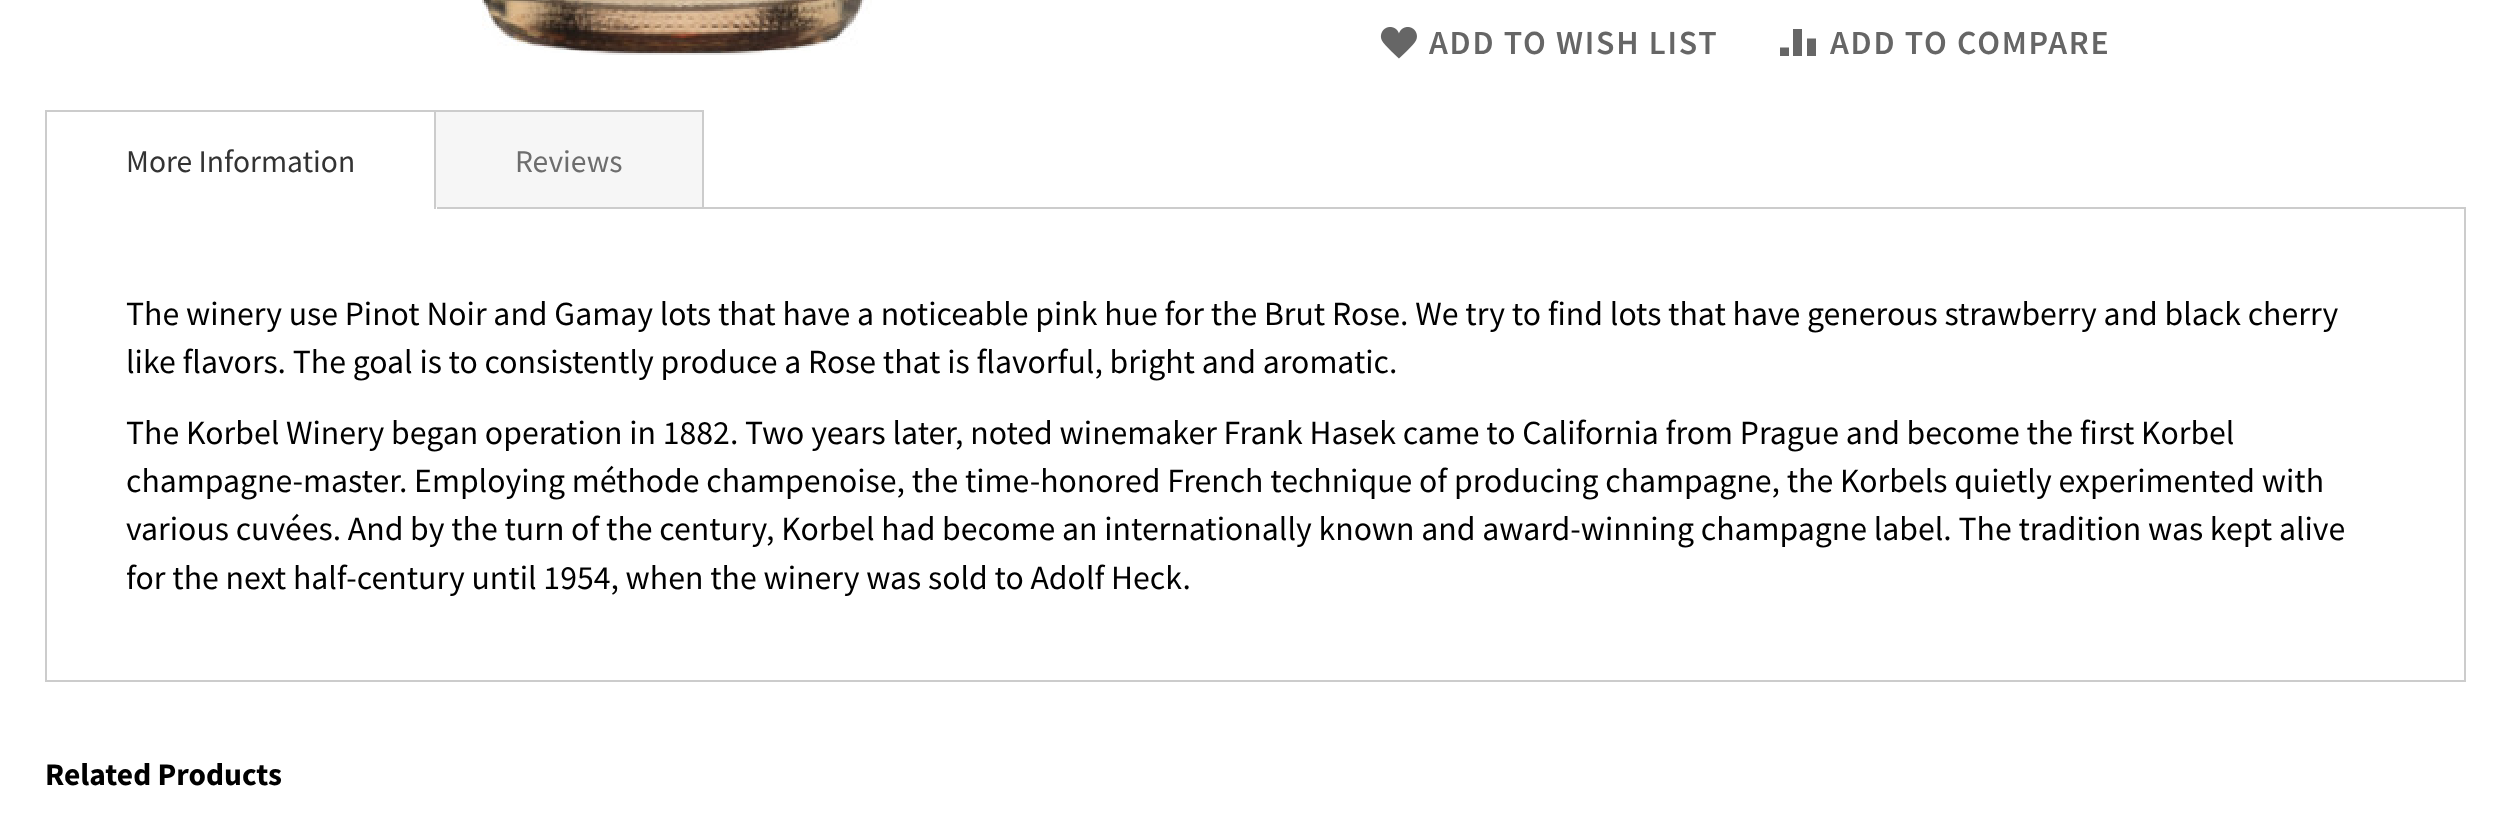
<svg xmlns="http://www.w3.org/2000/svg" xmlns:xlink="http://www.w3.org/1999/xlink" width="2510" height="840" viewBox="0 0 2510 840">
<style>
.cls-1{font:600 33.75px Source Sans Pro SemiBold;letter-spacing:1.75px;fill:#666666}
.cls-2{font:31.5px Source Sans Pro;fill:#333333}
.cls-3{font:31.5px Source Sans Pro;fill:#6d6d6d}
.cls-4{font:33.75px Source Sans Pro;fill:#000000}
.cls-5{font:bold 31.5px Source Sans Pro;fill:#000000}
</style>
<rect width="100%" height="100%" fill="#ffffff"/>
<image xlink:href="image0.png" x="482" y="0" width="390" height="55"/>
<image xlink:href="image1.png" x="1380" y="27" width="37" height="32"/>
<path fill="#666666" d="M1789 56V47.5H1780V56ZM1802 29H1793V56H1802ZM1816 38.5H1807V56H1816Z"/>
<rect fill="none" stroke="#cccccc" stroke-width="2" x="46" y="208" width="2419" height="473"/>
<rect fill="#ffffff" x="47" y="207" width="390" height="2"/>
<rect fill="#cccccc" x="45" y="110" width="659" height="2"/>
<rect fill="#cccccc" x="434" y="110" width="2" height="99"/>
<rect fill="#cccccc" x="45" y="110" width="2" height="99"/>
<rect fill="#f6f6f6" x="436" y="112" width="266" height="95"/>
<rect fill="#cccccc" x="702" y="110" width="2" height="97"/>
<text class="cls-1" x="1429" y="54">ADD TO WISH LIST</text>
<text class="cls-1" x="1830" y="54">ADD TO COMPARE</text>
<text class="cls-2" x="126" y="172">More Information</text>
<text class="cls-3" x="515" y="172">Reviews</text>
<text class="cls-4"><tspan x="126" y="325">The winery use Pinot Noir and Gamay lots that have a noticeable pink hue for the Brut Rose. We try to find lots that have generous strawberry and black cherry</tspan><tspan x="126" y="373">like flavors. The goal is to consistently produce a Rose that is flavorful, bright and aromatic.</tspan></text>
<text class="cls-4"><tspan x="126" y="444">The Korbel Winery began operation in 1882. Two years later, noted winemaker Frank Hasek came to California from Prague and become the first Korbel</tspan><tspan x="126" y="492">champagne-master. Employing méthode champenoise, the time-honored French technique of producing champagne, the Korbels quietly experimented with</tspan><tspan x="126" y="540">various cuvées. And by the turn of the century, Korbel had become an internationally known and award-winning champagne label. The tradition was kept alive</tspan><tspan x="126" y="589">for the next half-century until 1954, when the winery was sold to Adolf Heck.</tspan></text>
<text class="cls-5" x="45" y="785">Related Products</text>
</svg>
